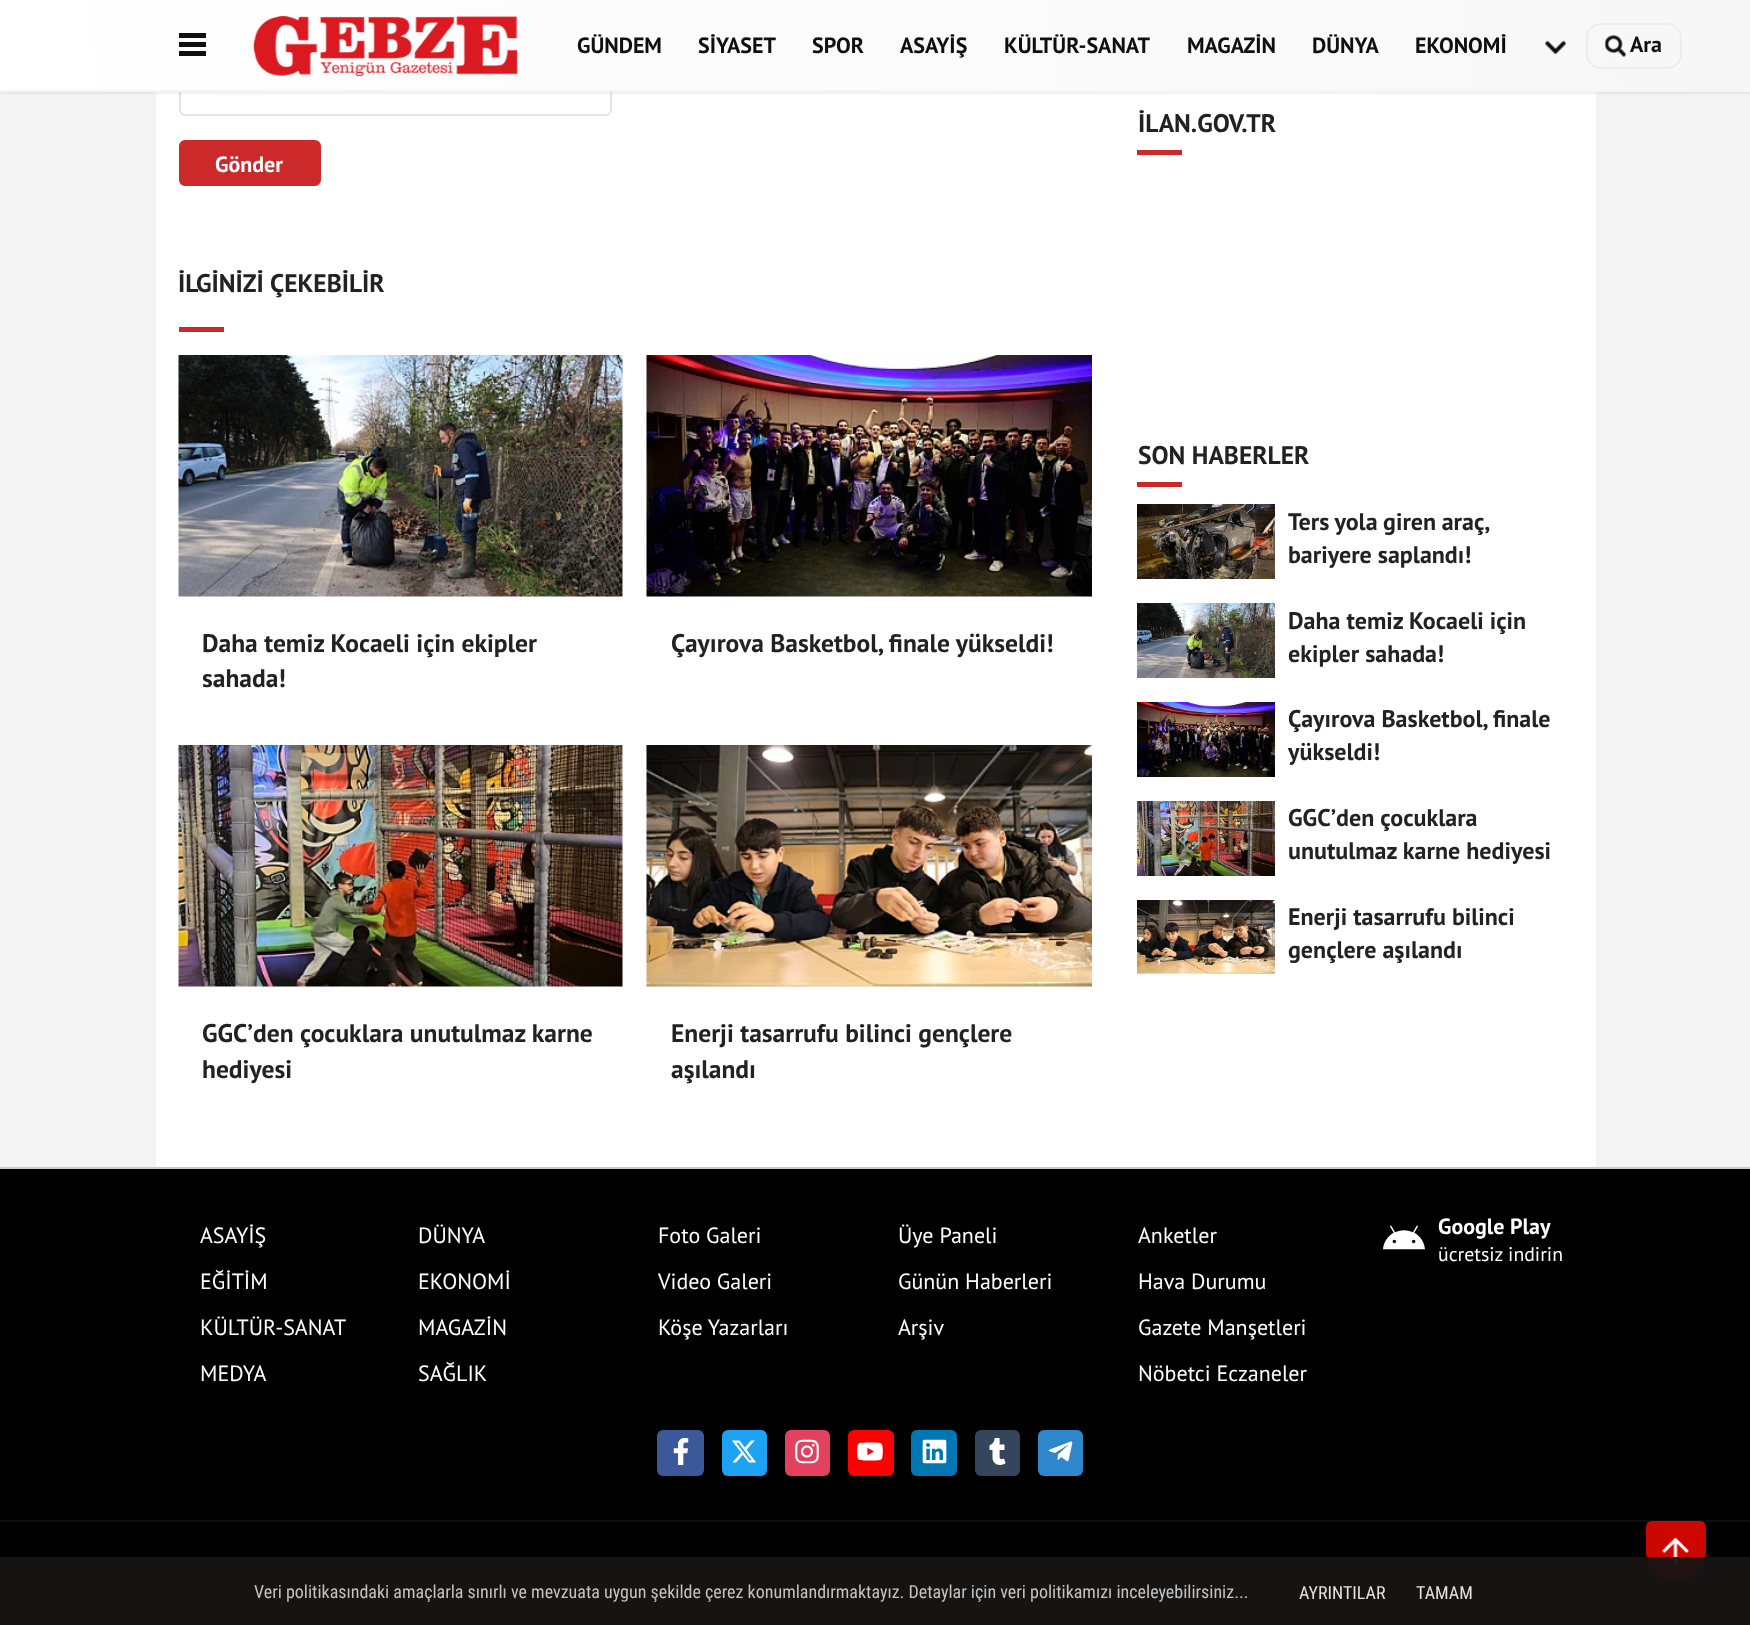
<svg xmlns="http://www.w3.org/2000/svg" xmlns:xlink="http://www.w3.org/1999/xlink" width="1750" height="1625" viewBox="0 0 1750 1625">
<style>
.cls-1{font:bold 22px PT Sans;fill:#0f0f0f}
.cls-2{font:bold 22px PT Sans;fill:#ffffff}
.cls-3{font:bold 25.5px PT Sans;fill:#222222}
.cls-4{font:bold 24px PT Sans;fill:#222222}
.cls-5{font:22px PT Sans;fill:#ffffff}
.cls-6{font:19.75px PT Sans;fill:#ffffff}
.cls-7{font:18px Roboto Condensed;fill:#c3c3c3}
.cls-8{font:18px Roboto Condensed;fill:#e2e2e2}
</style>
<defs>
<radialGradient id="g1" gradientUnits="userSpaceOnUse" cx="1751" cy="0" r="1753"><stop offset="0" stop-color="#f7f7f7"/><stop offset="1" stop-color="#ffffff"/></radialGradient>
<clipPath id="clip1"><rect x="203" y="621" width="396" height="77"/></clipPath>
<clipPath id="clip2"><rect x="203" y="1011" width="396" height="78"/></clipPath>
</defs>
<rect width="100%" height="100%" fill="#f4f4f4"/>
<rect fill="#ffffff" x="156" y="92" width="1440" height="1075"/>
<rect fill="none" stroke="#e1e5e9" stroke-width="2" x="180" y="66" width="431" height="49" rx="5"/>
<rect fill="#000000" fill-opacity="0.1" filter="blur(1.5px)" x="0" y="2" width="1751" height="91"/>
<rect fill="url(#g1)" x="0" y="0" width="1750" height="90"/>
<rect fill="#f5f5f5" x="0" y="90" width="1750" height="2"/>
<rect fill="#0f0f0f" x="179" y="33" width="27" height="5"/>
<rect fill="#0f0f0f" x="179" y="42" width="27" height="5"/>
<rect fill="#0f0f0f" x="179" y="51" width="27" height="5"/>
<image xlink:href="image0.png" x="253" y="16" width="265" height="61"/>
<image xlink:href="image1.png" x="1544" y="40" width="23" height="15"/>
<rect fill="none" stroke="#ededed" stroke-width="2" x="1587" y="24" width="94" height="44" rx="14"/>
<image xlink:href="image2.png" x="1604" y="35" width="23" height="22"/>
<rect fill="#cc292b" stroke="#cc292b" stroke-width="2" x="180" y="141" width="140" height="44" rx="5"/>
<rect fill="#cc292b" x="179" y="327" width="45" height="5"/>
<image xlink:href="image3.png" x="178" y="355" width="445" height="242"/>
<image xlink:href="image4.png" x="646" y="355" width="446" height="242"/>
<image xlink:href="image5.png" x="178" y="745" width="445" height="242"/>
<image xlink:href="image6.png" x="646" y="745" width="446" height="242"/>
<rect fill="#cc292b" x="1137" y="150" width="45" height="5"/>
<rect fill="#cc292b" x="1137" y="482" width="45" height="5"/>
<image xlink:href="image7.png" x="1137" y="504" width="138" height="75"/>
<image xlink:href="image8.png" x="1137" y="603" width="138" height="75"/>
<image xlink:href="image9.png" x="1137" y="702" width="138" height="75"/>
<image xlink:href="image10.png" x="1137" y="801" width="138" height="75"/>
<image xlink:href="image11.png" x="1137" y="900" width="138" height="74"/>
<rect fill="#000000" x="0" y="1169" width="1750" height="456"/>
<rect fill="#cccccc" x="0" y="1167" width="1750" height="2"/>
<image xlink:href="image12.png" x="1383" y="1225" width="42" height="25"/>
<rect fill="#3b5998" x="657" y="1430" width="47" height="46" rx="6"/>
<image xlink:href="image13.png" x="673" y="1438" width="16" height="27"/>
<rect fill="#1da1f2" x="722" y="1430" width="45" height="46" rx="6"/>
<image xlink:href="image14.png" x="732" y="1440" width="24" height="23"/>
<rect fill="#e4405f" x="785" y="1430" width="45" height="46" rx="6"/>
<image xlink:href="image15.png" x="795" y="1439" width="24" height="25"/>
<rect fill="#ff0000" x="848" y="1430" width="46" height="46" rx="6"/>
<image xlink:href="image16.png" x="857" y="1442" width="26" height="19"/>
<rect fill="#0077b5" x="911" y="1430" width="46" height="46" rx="6"/>
<image xlink:href="image17.png" x="922" y="1439" width="25" height="25"/>
<rect fill="#35465c" x="975" y="1430" width="45" height="46" rx="6"/>
<image xlink:href="image18.png" x="989" y="1438" width="17" height="27"/>
<rect fill="#2e87ca" x="1038" y="1430" width="45" height="46" rx="6"/>
<image xlink:href="image19.png" x="1048" y="1441" width="25" height="21"/>
<rect fill="#0e0f11" x="0" y="1520" width="1750" height="2"/>
<path fill="#cc0700" d="M1652 1521H1700C1703.5 1521 1706 1523.5 1706 1527V1551C1706 1567.5 1692.5 1581 1676 1581C1659.5 1581 1646 1567.5 1646 1551V1527C1646 1523.5 1648.5 1521 1652 1521Z"/>
<image xlink:href="image20.png" x="1662" y="1538" width="27" height="27"/>
<rect fill="#171414" fill-opacity="0.95" x="0" y="1557" width="1750" height="68"/>
<text class="cls-1" x="577" y="53">GÜNDEM</text>
<text class="cls-1" x="698" y="53">SİYASET</text>
<text class="cls-1" x="812" y="53">SPOR</text>
<text class="cls-1" x="900" y="53">ASAYİŞ</text>
<text class="cls-1" x="1004" y="53">KÜLTÜR-SANAT</text>
<text class="cls-1" x="1187" y="53">MAGAZİN</text>
<text class="cls-1" x="1312" y="53">DÜNYA</text>
<text class="cls-1" x="1415" y="53">EKONOMİ</text>
<text class="cls-1" x="1630" y="52">Ara</text>
<text class="cls-2" x="215" y="172">Gönder</text>
<text class="cls-3" x="178" y="292">İLGİNİZİ ÇEKEBİLİR</text>
<text class="cls-3" x="202" y="652">Daha temiz Kocaeli için ekipler</text>
<g clip-path="url(#clip1)">
<text class="cls-3" x="202" y="687">sahada!</text>
</g>
<text class="cls-3" x="671" y="652">Çayırova Basketbol, finale yükseldi!</text>
<g clip-path="url(#clip2)">
<text class="cls-3" x="202" y="1042">GGC’den çocuklara unutulmaz karne</text>
</g>
<text class="cls-3" x="202" y="1078">hediyesi</text>
<text class="cls-3"><tspan x="671" y="1042">Enerji tasarrufu bilinci gençlere</tspan><tspan x="671" y="1078">aşılandı</tspan></text>
<text class="cls-3" x="1138" y="132">İLAN.GOV.TR</text>
<text class="cls-3" x="1138" y="464">SON HABERLER</text>
<text class="cls-4"><tspan x="1288" y="530" word-spacing="-0.5">Ters yola giren araç,</tspan><tspan x="1288" y="563">bariyere saplandı!</tspan></text>
<text class="cls-4"><tspan x="1288" y="629">Daha temiz Kocaeli için</tspan><tspan x="1288" y="662">ekipler sahada!</tspan></text>
<text class="cls-4"><tspan x="1288" y="727">Çayırova Basketbol, finale</tspan><tspan x="1288" y="760">yükseldi!</tspan></text>
<text class="cls-4"><tspan x="1288" y="826">GGC’den çocuklara</tspan><tspan x="1288" y="859">unutulmaz karne hediyesi</tspan></text>
<text class="cls-4"><tspan x="1288" y="925">Enerji tasarrufu bilinci</tspan><tspan x="1288" y="958">gençlere aşılandı</tspan></text>
<text class="cls-5" x="200" y="1243">ASAYİŞ</text>
<text class="cls-5" x="418" y="1243">DÜNYA</text>
<text class="cls-5" x="200" y="1289">EĞİTİM</text>
<text class="cls-5" x="418" y="1289">EKONOMİ</text>
<text class="cls-5" x="200" y="1335">KÜLTÜR-SANAT</text>
<text class="cls-5" x="418" y="1335">MAGAZİN</text>
<text class="cls-5" x="200" y="1381">MEDYA</text>
<text class="cls-5" x="418" y="1381">SAĞLIK</text>
<text class="cls-5" x="658" y="1243">Foto Galeri</text>
<text class="cls-5" x="658" y="1289">Video Galeri</text>
<text class="cls-5" x="658" y="1335">Köşe Yazarları</text>
<text class="cls-5" x="898" y="1243">Üye Paneli</text>
<text class="cls-5" x="898" y="1289">Günün Haberleri</text>
<text class="cls-5" x="898" y="1335">Arşiv</text>
<text class="cls-5" x="1138" y="1243">Anketler</text>
<text class="cls-5" x="1138" y="1289">Hava Durumu</text>
<text class="cls-5" x="1138" y="1335">Gazete Manşetleri</text>
<text class="cls-5" x="1138" y="1381">Nöbetci Eczaneler</text>
<text class="cls-2" x="1438" y="1234">Google Play</text>
<text class="cls-6" x="1438" y="1261">ücretsiz indirin</text>
<text class="cls-7" x="254" y="1598">Veri politikasındaki amaçlarla sınırlı ve mevzuata uygun şekilde çerez konumlandırmaktayız. Detaylar için veri politikamızı inceleyebilirsiniz...</text>
<text class="cls-8" x="1299" y="1599">AYRINTILAR</text>
<text class="cls-8" x="1416" y="1599">TAMAM</text>
</svg>
